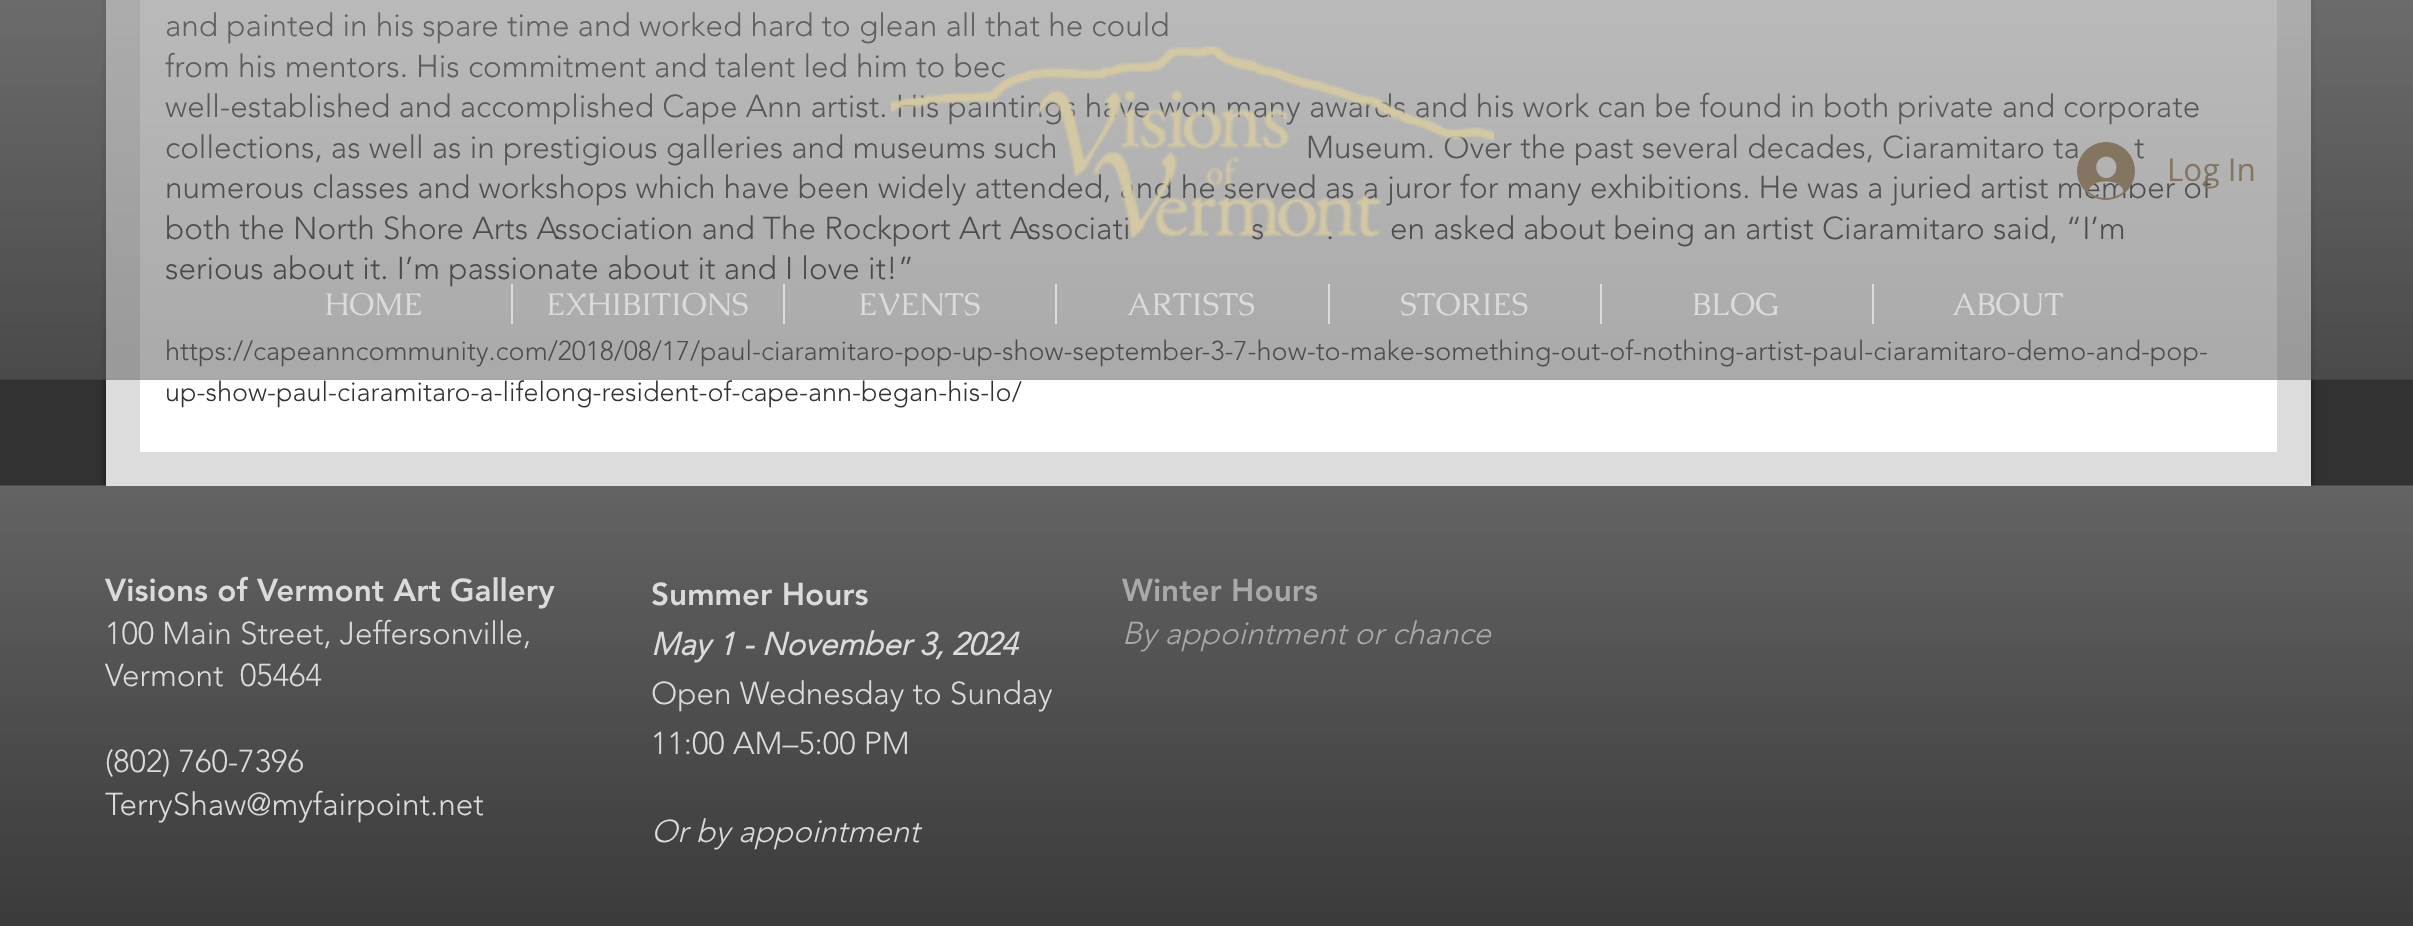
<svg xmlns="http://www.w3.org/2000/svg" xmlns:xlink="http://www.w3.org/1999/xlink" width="2413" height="926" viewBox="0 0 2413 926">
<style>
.cls-1{font:300 31.5px 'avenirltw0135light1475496';fill:#1a1a1a}
.cls-2{font:300 27px 'avenirltw0135light1475496';fill:#333232}
.cls-3{font:31.5px Open Sans;fill:#847560}
.cls-4{font:31.5px Caudex;fill:#dbdbdb}
.cls-5{font:900 31.5px 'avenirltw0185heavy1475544';fill:#dbdbdb}
.cls-6{font:300 31.5px 'avenirltw0135light1475496';fill:#dbdbdb}
.cls-7{font:italic bold 31.5px 'avenirltw0135light1475496';fill:#dbdbdb}
.cls-8{font:italic 300 31.5px 'avenirltw0135light1475496';fill:#dbdbdb}
.cls-9{font:900 31.5px 'avenirltw0185heavy1475544';fill:#a9a9a9}
.cls-10{font:italic 300 31.5px 'avenirltw0135light1475496';fill:#a9a9a9}
</style>
<rect width="100%" height="100%" fill="#333232"/>
<rect fill="#000000" fill-opacity="0.6" filter="blur(4.5px)" x="106" y="-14" width="2205" height="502"/>
<rect fill="#ffffff" stroke="#dddcdc" stroke-width="34" x="123" y="-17" width="2171" height="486"/>
<rect fill="#2f2e2e" x="0" y="486" width="2413" height="440"/>
<image xlink:href="image3.png" x="0" y="485" width="2413" height="441"/>
<text class="cls-1"><tspan x="165" y="36">and painted in his spare time and worked hard to glean all that he could</tspan><tspan x="165" y="77">from his mentors. His commitment and talent led him to bec</tspan><tspan x="165" y="117">well-established and accomplished Cape Ann artist. His paintings have won many awards and his work can be found in both private and corporate</tspan><tspan x="165" y="158">collections, as well as in prestigious galleries and museums such</tspan></text>
<text class="cls-1" x="1306" y="158">Museum. Over the past several decades, Ciaramitaro ta</text>
<text class="cls-1" x="2134" y="158">t</text>
<text class="cls-1"><tspan x="165" y="198">numerous classes and workshops which have been widely attended, and he served as a juror for many exhibitions. He was a juried artist member of</tspan><tspan x="165" y="239">both the North Shore Arts Association and The Rockport Art Associati</tspan></text>
<text class="cls-1" x="1251" y="239">s</text>
<text class="cls-1" x="1326" y="239">.</text>
<text class="cls-1" x="1390" y="239">en asked about being an artist Ciaramitaro said, “I’m</text>
<text class="cls-1" x="165" y="279">serious about it. I’m passionate about it and I love it!”</text>
<text class="cls-2"><tspan x="165" y="360">https://capeanncommunity.com/2018/08/17/paul-ciaramitaro-pop-up-show-september-3-7-how-to-make-something-out-of-nothing-artist-paul-ciaramitaro-demo-and-pop-</tspan><tspan x="165" y="401">up-show-paul-ciaramitaro-a-lifelong-resident-of-cape-ann-began-his-lo/</tspan></text>
<rect fill="#424242" fill-opacity="0.49" x="0" y="0" width="2413" height="380"/>
<image xlink:href="image0.png" x="0" y="0" width="2413" height="380"/>
<image xlink:href="image1.png" x="891" y="46" width="603" height="192"/>
<image xlink:href="image2.png" x="2077" y="142" width="58" height="58"/>
<text class="cls-3" x="2167" y="181">Log In</text>
<text class="cls-4" x="324" y="315">HOME</text>
<rect fill="#dddcdc" x="511" y="284" width="2" height="40"/>
<text class="cls-4" x="546" y="315">EXHIBITIONS</text>
<rect fill="#dddcdc" x="783" y="284" width="2" height="40"/>
<text class="cls-4" x="858" y="315">EVENTS</text>
<rect fill="#dddcdc" x="1055" y="284" width="2" height="40"/>
<text class="cls-4" x="1127" y="315">ARTISTS</text>
<rect fill="#dddcdc" x="1328" y="284" width="2" height="40"/>
<text class="cls-4" x="1400" y="315">STORIES</text>
<rect fill="#dddcdc" x="1600" y="284" width="2" height="40"/>
<text class="cls-4" x="1692" y="315">BLOG</text>
<rect fill="#dddcdc" x="1872" y="284" width="2" height="40"/>
<text class="cls-4" x="1952" y="315">ABOUT</text>
<text class="cls-5" x="105" y="601">Visions of Vermont Art Gallery</text>
<text class="cls-6" xml:space="preserve"><tspan x="105" y="644">100 Main Street, Jeffersonville,</tspan><tspan x="105" y="686">Vermont  05464</tspan></text>
<text class="cls-6"><tspan x="105" y="772">(802) 760-7396</tspan><tspan x="105" y="815">TerryShaw@myfairpoint.net</tspan></text>
<text class="cls-5" x="651" y="605">Summer Hours</text>
<text class="cls-7" x="651" y="655">May 1 - November 3, 2024</text>
<text class="cls-6"><tspan x="651" y="704">Open Wednesday to Sunday</tspan><tspan x="651" y="754">11:00 AM–5:00 PM</tspan></text>
<text class="cls-8" x="651" y="842">Or by appointment</text>
<text class="cls-9" x="1122" y="601">Winter Hours</text>
<text class="cls-10" x="1122" y="644">By appointment or chance</text>
</svg>
